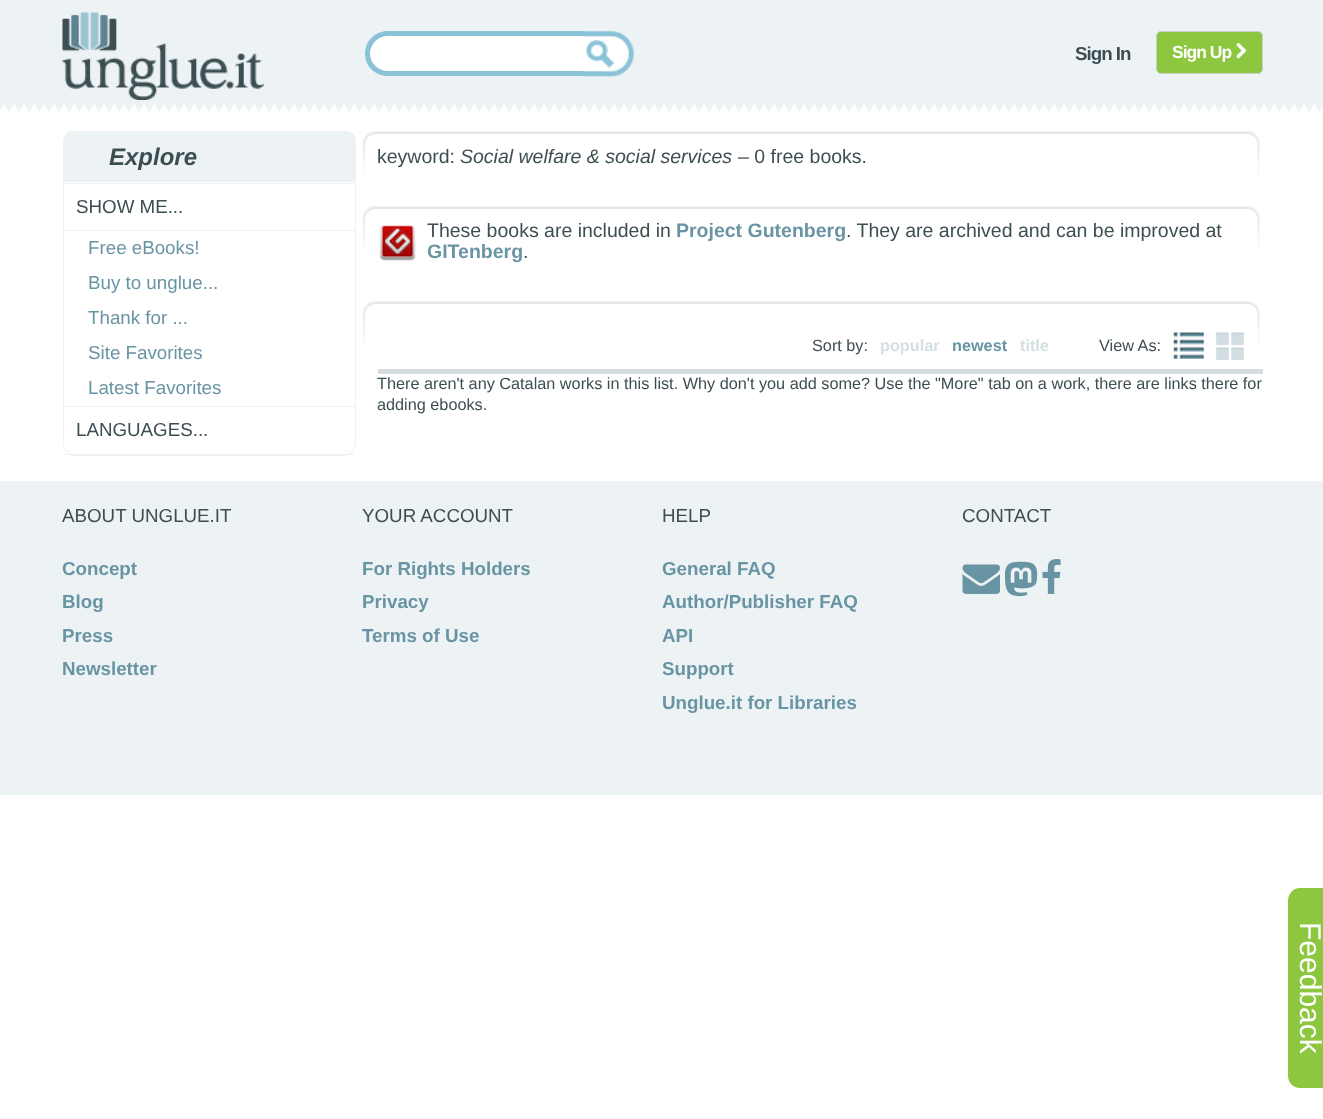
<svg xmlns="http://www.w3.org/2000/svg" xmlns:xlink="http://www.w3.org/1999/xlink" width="1323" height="1119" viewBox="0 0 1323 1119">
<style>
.cls-1{font:bold 18.75px Liberation Sans;letter-spacing:-1px;fill:#3d4e53}
.cls-2{font:bold 17.5px Liberation Sans;letter-spacing:-1px;fill:#ffffff}
.cls-3{font:italic bold 24px Liberation Sans;fill:#3d4e53}
.cls-4{font:18.75px Liberation Sans;fill:#3d4e53}
.cls-5{font:18.75px Liberation Sans;fill:#6994a3}
.cls-6{font:19.5px Liberation Sans;fill:#3d4e53}
.cls-7{font:italic 19.5px Liberation Sans;fill:#3d4e53}
.cls-8{font:bold 19.5px Liberation Sans;fill:#6994a3}
.cls-9{font:16.25px Liberation Sans;fill:#3d4e53}
.cls-10{font:bold 16.25px Liberation Sans;fill:#d2dfe3}
.cls-11{font:bold 16.25px Liberation Sans;fill:#6994a3}
.cls-12{font:bold 18.75px Liberation Sans;fill:#6994a3}
.cls-13{font:30px Liberation Sans;fill:#ffffff}
</style>
<rect width="100%" height="100%" fill="#ffffff"/>
<image xlink:href="image0.png" x="0" y="0" width="1323" height="113"/>
<image xlink:href="image1.png" x="62" y="12" width="202" height="88"/>
<path fill="#ffffff" d="M387.5 31H584V76H387.5C375 76 365 66 365 53.5C365 41 375 31 387.5 31Z"/>
<path fill="#8ac3d7" fill-rule="evenodd" d="M388 31H584V76H388C375 76 365 66 365 54C365 41 375 31 388 31ZM388 36H584V71H388C378 71 370 63 370 54C370 44 378 36 388 36Z"/>
<image xlink:href="image2.png" x="583" y="31" width="51" height="46"/>
<rect fill="#8dc63f" stroke="#cccccc" x="1156.5" y="31.5" width="106" height="42" rx="4.5"/>
<image xlink:href="image3.png" x="1236" y="42" width="11" height="17"/>
<path fill="#edf3f4" d="M73 131H346C351.5 131 356 135.5 356 141V181H63V141C63 135.5 67.5 131 73 131Z"/>
<path fill="none" stroke="#edf3f4" d="M63.5 181.5H355.5V443C355.5 450 350 455.5 343 455.5H76C69 455.5 63.5 450 63.5 443Z"/>
<rect fill="#edf3f4" x="64" y="183" width="291" height="1"/>
<rect fill="#edf3f4" x="64" y="230" width="291" height="1"/>
<rect fill="#edf3f4" x="64" y="406" width="291" height="1"/>
<rect fill="#edf3f4" x="64" y="454" width="291" height="1"/>
<image xlink:href="image4.png" x="362" y="131" width="898" height="44"/>
<image xlink:href="image5.png" x="362" y="206" width="898" height="43"/>
<image xlink:href="image6.png" x="379" y="225" width="37" height="36"/>
<image xlink:href="image7.png" x="362" y="301" width="898" height="44"/>
<rect fill="#d6dde0" x="378" y="369" width="885" height="5"/>
<image xlink:href="image8.png" x="1173" y="332" width="31" height="27"/>
<image xlink:href="image9.png" x="1216" y="332" width="28" height="28"/>
<rect fill="#edf3f4" x="0" y="481" width="1323" height="314"/>
<image xlink:href="image10.png" x="962" y="564" width="38" height="30"/>
<image xlink:href="image11.png" x="1005" y="561" width="33" height="36"/>
<image xlink:href="image12.png" x="1042" y="559" width="19" height="35"/>
<path fill="#8dc63f" d="M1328 888V1088H1300C1293 1088 1288 1082 1288 1076V901C1288 894 1293 888 1300 888Z"/>
<text class="cls-1" x="1075" y="60">Sign In</text>
<text class="cls-2" x="1172" y="58">Sign Up</text>
<text class="cls-3" x="109" y="165">Explore</text>
<text class="cls-4" x="76" y="213">SHOW ME...</text>
<text class="cls-5"><tspan x="88" y="254">Free eBooks!</tspan><tspan x="88" y="289">Buy to unglue...</tspan><tspan x="88" y="324">Thank for ...</tspan><tspan x="88" y="359">Site Favorites</tspan><tspan x="88" y="394">Latest Favorites</tspan></text>
<text class="cls-4" x="76" y="436">LANGUAGES...</text>
<text class="cls-6" x="377" y="163">keyword:</text>
<text class="cls-7" x="460" y="163">Social welfare &amp; social services</text>
<text class="cls-6" x="738" y="163">– 0 free books.</text>
<text class="cls-6" x="427" y="237">These books are included in</text>
<text class="cls-8" x="676" y="237">Project Gutenberg</text>
<text class="cls-6" x="846" y="237">. They are archived and can be improved at</text>
<text class="cls-8" x="427" y="258">GITenberg</text>
<text class="cls-6" x="523" y="258">.</text>
<text class="cls-9" x="812" y="351">Sort by:</text>
<text class="cls-10" x="880" y="351">popular</text>
<text class="cls-11" x="952" y="351">newest</text>
<text class="cls-10" x="1020" y="351">title</text>
<text class="cls-9" x="1099" y="351">View As:</text>
<text class="cls-9"><tspan x="377" y="389">There aren't any Catalan works in this list. Why don't you add some? Use the "More" tab on a work, there are links there for</tspan><tspan x="377" y="410">adding ebooks.</tspan></text>
<text class="cls-4" x="62" y="522">ABOUT UNGLUE.IT</text>
<text class="cls-12"><tspan x="62" y="575">Concept</tspan><tspan x="62" y="608">Blog</tspan><tspan x="62" y="642">Press</tspan><tspan x="62" y="675">Newsletter</tspan></text>
<text class="cls-4" x="362" y="522">YOUR ACCOUNT</text>
<text class="cls-12"><tspan x="362" y="575">For Rights Holders</tspan><tspan x="362" y="608">Privacy</tspan><tspan x="362" y="642">Terms of Use</tspan></text>
<text class="cls-4" x="662" y="522">HELP</text>
<text class="cls-12"><tspan x="662" y="575">General FAQ</tspan><tspan x="662" y="608">Author/Publisher FAQ</tspan><tspan x="662" y="642">API</tspan><tspan x="662" y="675">Support</tspan><tspan x="662" y="709">Unglue.it for Libraries</tspan></text>
<text class="cls-4" x="962" y="522">CONTACT</text>
<text class="cls-13" x="1300" y="922" transform="rotate(90 1300 922)">Feedback</text>
</svg>
